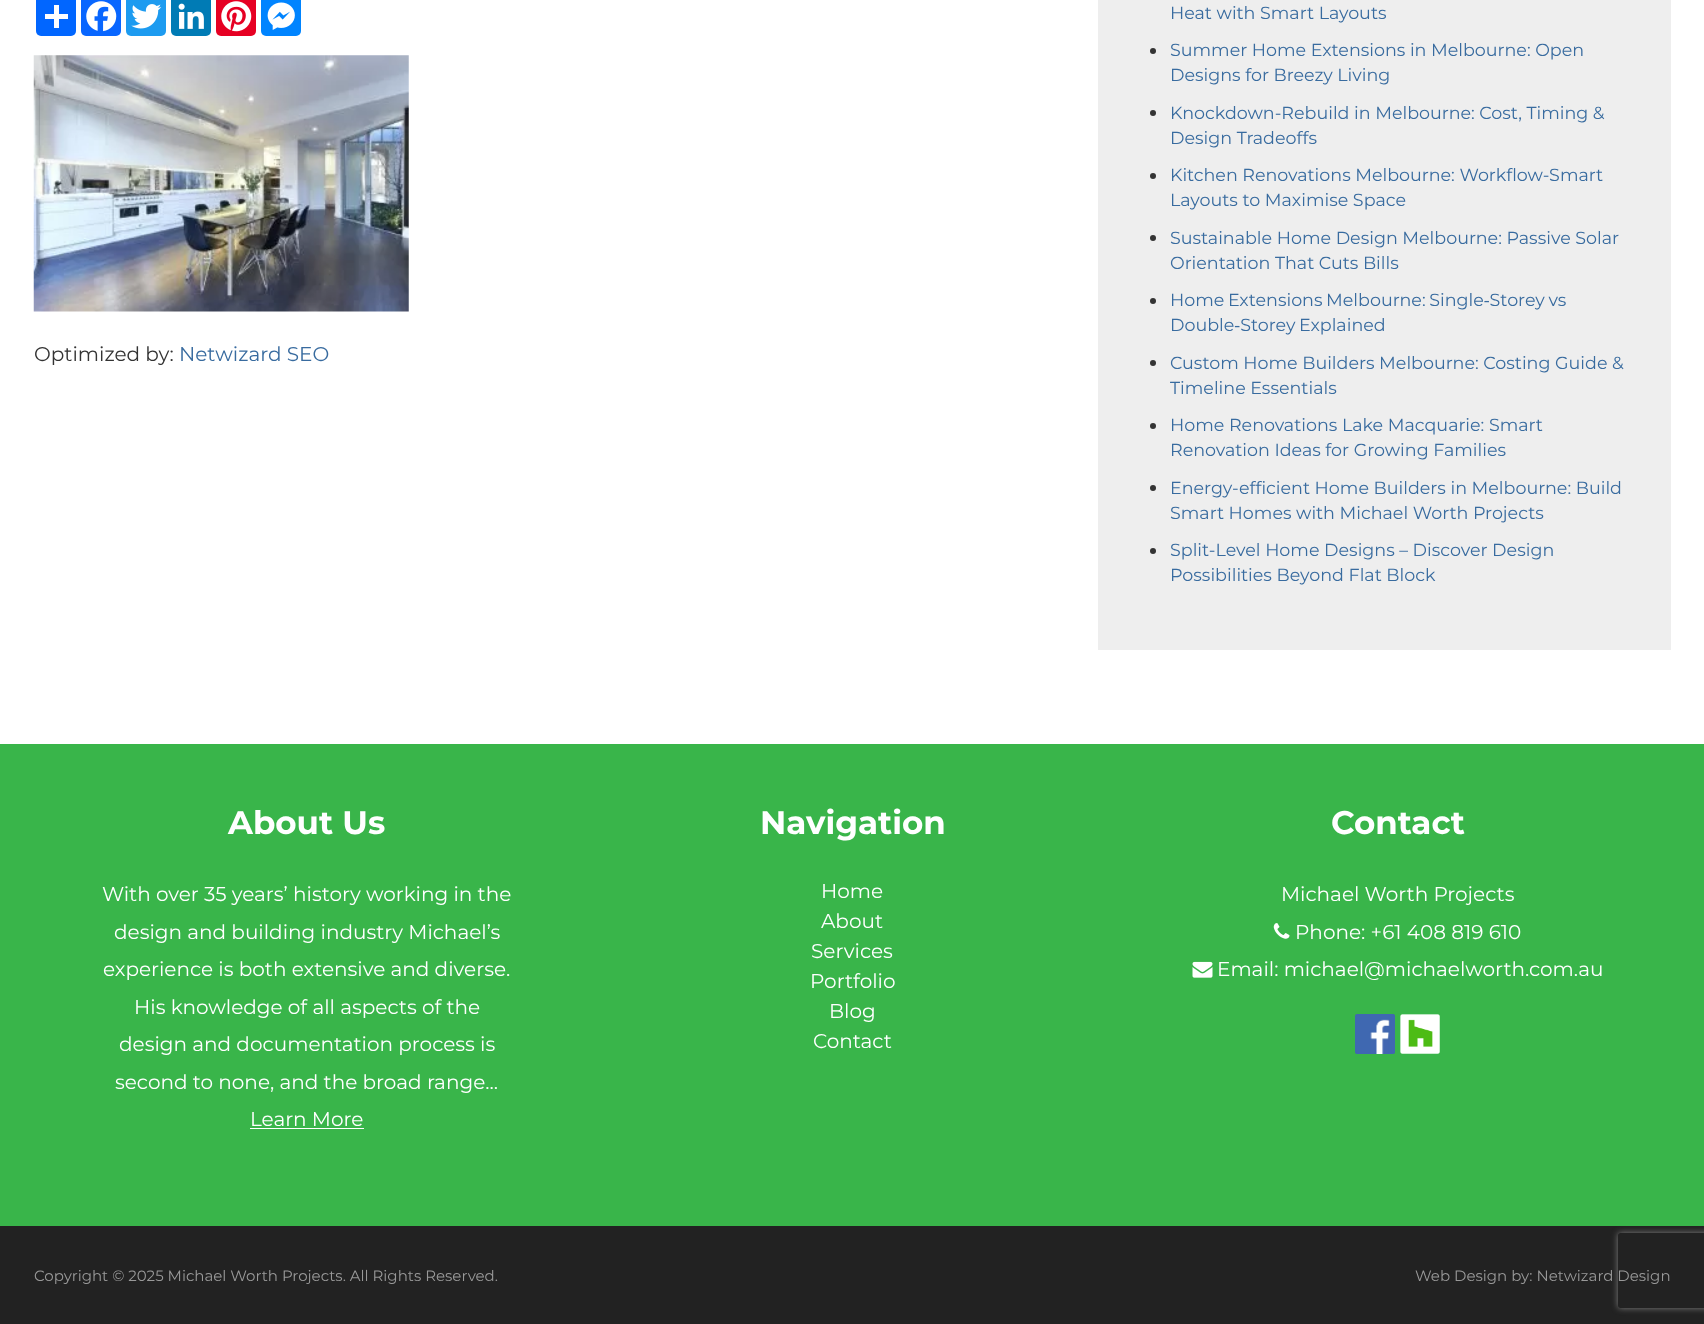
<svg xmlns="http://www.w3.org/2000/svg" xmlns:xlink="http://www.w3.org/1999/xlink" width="1704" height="1324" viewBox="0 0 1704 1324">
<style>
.cls-1{font:20px Montserrat;fill:#333333}
.cls-2{font:20px Montserrat;fill:#386b9f}
.cls-3{font:17.5px Montserrat;fill:#386b9f}
.cls-4{font:bold 32.5px Montserrat;fill:#ffffff}
.cls-5{font:20px Montserrat;fill:#ffffff}
.cls-6{font:15px Montserrat;fill:#999999}
</style>
<defs>
<clipPath id="clip1"><path d="M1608 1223H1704V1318H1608ZM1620.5 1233H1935.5C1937 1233 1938 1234 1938 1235.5V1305.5C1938 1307 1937 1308 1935.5 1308H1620.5C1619 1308 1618 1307 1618 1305.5V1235.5C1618 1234 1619 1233 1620.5 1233Z" clip-rule="evenodd"/></clipPath>
</defs>
<rect width="100%" height="100%" fill="#ffffff"/>
<rect fill="#0166ff" x="36" y="-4" width="40" height="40" rx="5"/>
<rect fill="#ffffff" x="54" y="5" width="5" height="23"/>
<rect fill="#ffffff" x="45" y="14" width="23" height="5"/>
<rect fill="#0866ff" x="81" y="-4" width="40" height="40" rx="5"/>
<image xlink:href="image0.png" x="86" y="1" width="31" height="31"/>
<rect fill="#1d9bf0" x="126" y="-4" width="40" height="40" rx="5"/>
<image xlink:href="image1.png" x="131" y="4" width="31" height="25"/>
<rect fill="#007bb5" x="171" y="-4" width="40" height="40" rx="5"/>
<image xlink:href="image2.png" x="178" y="3" width="26" height="26"/>
<rect fill="#e60023" x="216" y="-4" width="40" height="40" rx="5"/>
<image xlink:href="image3.png" x="221" y="1" width="31" height="31"/>
<rect fill="#0084ff" x="261" y="-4" width="40" height="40" rx="5"/>
<image xlink:href="image4.png" x="267" y="2" width="28" height="28"/>
<image xlink:href="image5.png" x="33" y="55" width="376" height="257"/>
<rect fill="#eeeeee" x="1098" y="0" width="573" height="650"/>
<circle fill="#333333" cx="1153" cy="51" r="3"/>
<circle fill="#333333" cx="1153" cy="113" r="3"/>
<circle fill="#333333" cx="1153" cy="176" r="3"/>
<circle fill="#333333" cx="1153" cy="238" r="3"/>
<circle fill="#333333" cx="1153" cy="301" r="3"/>
<circle fill="#333333" cx="1153" cy="363" r="3"/>
<circle fill="#333333" cx="1153" cy="426" r="3"/>
<circle fill="#333333" cx="1153" cy="488" r="3"/>
<circle fill="#333333" cx="1153" cy="551" r="3"/>
<rect fill="#39b54a" x="0" y="744" width="1704" height="482"/>
<rect fill="#ffffff" x="250" y="1128" width="114" height="1"/>
<image xlink:href="image6.png" x="1273" y="923" width="17" height="16"/>
<image xlink:href="image7.png" x="1192" y="961" width="21" height="17"/>
<image xlink:href="image8.png" x="1355" y="1014" width="40" height="40"/>
<image xlink:href="image9.png" x="1400" y="1014" width="40" height="40"/>
<rect fill="#222222" x="0" y="1226" width="1704" height="98"/>
<g clip-path="url(#clip1)">
<rect fill="#808080" filter="blur(3px)" x="1618" y="1233" width="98" height="75" rx="2.5"/>
</g>
<text class="cls-1" x="34" y="361">Optimized by:</text>
<text class="cls-2" x="179" y="361">Netwizard SEO</text>
<text class="cls-3" x="1170" y="19">Heat with Smart Layouts</text>
<text class="cls-3"><tspan x="1170" y="56">Summer Home Extensions in Melbourne: Open</tspan><tspan x="1170" y="81">Designs for Breezy Living</tspan></text>
<text class="cls-3"><tspan x="1170" y="119">Knockdown-Rebuild in Melbourne: Cost, Timing &amp;</tspan><tspan x="1170" y="144">Design Tradeoffs</tspan></text>
<text class="cls-3"><tspan x="1170" y="181">Kitchen Renovations Melbourne: Workflow-Smart</tspan><tspan x="1170" y="206">Layouts to Maximise Space</tspan></text>
<text class="cls-3"><tspan x="1170" y="244">Sustainable Home Design Melbourne: Passive Solar</tspan><tspan x="1170" y="269">Orientation That Cuts Bills</tspan></text>
<text class="cls-3"><tspan x="1170" y="306" word-spacing="-1">Home Extensions Melbourne: Single‑Storey vs</tspan><tspan x="1170" y="331" word-spacing="-1">Double‑Storey Explained</tspan></text>
<text class="cls-3"><tspan x="1170" y="369">Custom Home Builders Melbourne: Costing Guide &amp;</tspan><tspan x="1170" y="394">Timeline Essentials</tspan></text>
<text class="cls-3"><tspan x="1170" y="431">Home Renovations Lake Macquarie: Smart</tspan><tspan x="1170" y="456">Renovation Ideas for Growing Families</tspan></text>
<text class="cls-3"><tspan x="1170" y="494">Energy-efficient Home Builders in Melbourne: Build</tspan><tspan x="1170" y="519">Smart Homes with Michael Worth Projects</tspan></text>
<text class="cls-3"><tspan x="1170" y="556">Split-Level Home Designs – Discover Design</tspan><tspan x="1170" y="581">Possibilities Beyond Flat Block</tspan></text>
<text class="cls-4" x="228" y="834">About Us</text>
<text class="cls-5" x="102" y="901">With over 35 years’ history working in the</text>
<text class="cls-5" x="114" y="939">design and building industry Michael’s</text>
<text class="cls-5" x="103" y="976">experience is both extensive and diverse.</text>
<text class="cls-5" x="134" y="1014">His knowledge of all aspects of the</text>
<text class="cls-5" x="119" y="1051">design and documentation process is</text>
<text class="cls-5" x="115" y="1089">second to none, and the broad range...</text>
<text class="cls-5" x="250" y="1126">Learn More</text>
<text class="cls-4" x="760" y="834">Navigation</text>
<text class="cls-5"><tspan x="821" y="898">Home</tspan><tspan x="821" y="928">About</tspan></text>
<text class="cls-5" x="811" y="958">Services</text>
<text class="cls-5" x="810" y="988">Portfolio</text>
<text class="cls-5" x="829" y="1018">Blog</text>
<text class="cls-5" x="813" y="1048">Contact</text>
<text class="cls-4" x="1331" y="834">Contact</text>
<text class="cls-5" x="1281" y="901">Michael Worth Projects</text>
<text class="cls-5" x="1295" y="939">Phone: +61 408 819 610</text>
<text class="cls-5" x="1217" y="976">Email: michael@michaelworth.com.au</text>
<text class="cls-6" x="34" y="1281">Copyright © 2025 Michael Worth Projects. All Rights Reserved.</text>
<text class="cls-6" x="1415" y="1281">Web Design by: Netwizard Design</text>
</svg>
